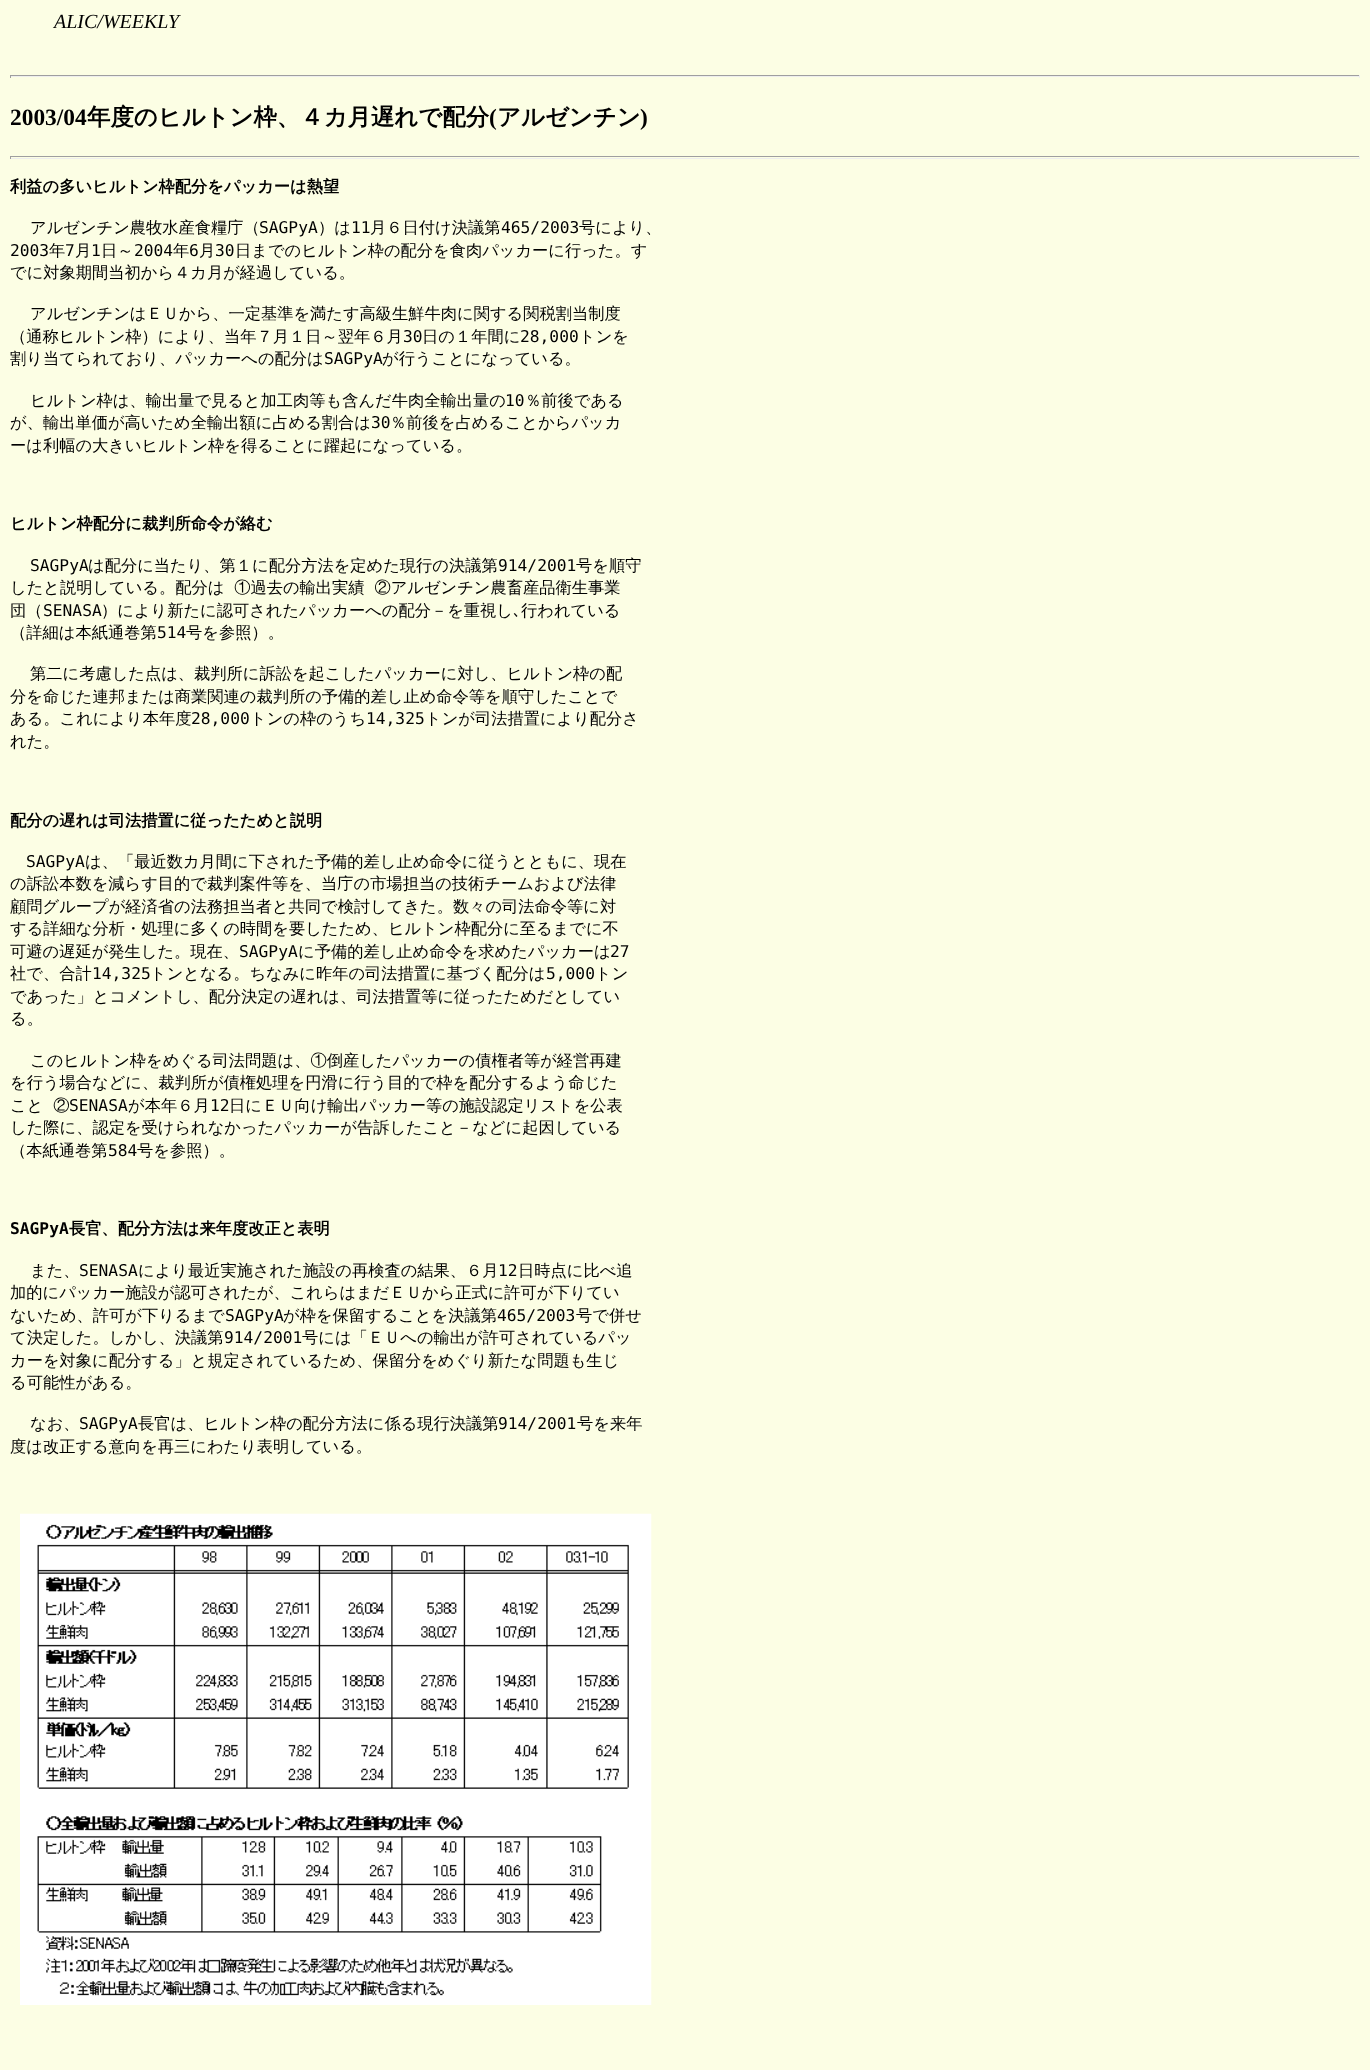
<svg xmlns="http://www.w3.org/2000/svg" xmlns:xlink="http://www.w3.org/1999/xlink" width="1370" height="2070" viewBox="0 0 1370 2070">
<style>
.cls-1{font:italic 20px Liberation Serif;fill:#000000}
.cls-2{font:bold 23.4px Liberation Serif;fill:#000000}
.cls-3{font:bold 23.4px WenQuanYi Zen Hei;fill:#000000}
.cls-4{font:bold 16.25px WenQuanYi Zen Hei;fill:#000000}
.cls-5{font:500 16.25px WenQuanYi Zen Hei;fill:#000000}
.cls-6{font:16.25px DejaVu Sans Mono;fill:#000000}
.cls-7{font:16.25px IPAGothic;fill:#000000}
.cls-8{font:bold 16.25px DejaVu Sans Mono;fill:#000000}
</style>
<rect width="100%" height="100%" fill="#fcfee4"/>
<rect fill="#9f9f9f" x="10" y="75" width="1350" height="1"/>
<rect fill="#eeeeee" x="1359" y="75" width="1" height="3"/>
<rect fill="#eeeeee" x="10" y="76" width="1350" height="1"/>
<rect fill="#9f9f9f" x="10" y="75" width="1" height="3"/>
<rect fill="#9f9f9f" x="10" y="156" width="1350" height="1"/>
<rect fill="#eeeeee" x="1359" y="156" width="1" height="3"/>
<rect fill="#eeeeee" x="10" y="158" width="1350" height="1"/>
<rect fill="#9f9f9f" x="10" y="156" width="1" height="3"/>
<image xlink:href="image0.png" x="20" y="1513" width="632" height="492"/>
<text class="cls-1" x="54" y="28">ALIC/WEEKLY</text>
<text class="cls-2" x="10" y="125">2003/04</text>
<text class="cls-3" x="87" y="125">年度のヒルトン枠、４カ月遅れで配分</text>
<text class="cls-2" x="489" y="125">(</text>
<text class="cls-3" x="497" y="125">アルゼンチン</text>
<text class="cls-2" x="640" y="125">)</text>
<text class="cls-4" x="10" y="192">利益の多いヒルトン枠配分をパッカーは熱望</text>
<text class="cls-5" x="30" y="233">アルゼンチン農牧水産食糧庁（</text>
<text class="cls-6" x="259" y="233">SAGPyA</text>
<text class="cls-5" x="318" y="233">）は</text>
<text class="cls-6" x="351" y="233">11</text>
<text class="cls-5" x="370" y="233">月６日付け決議第</text>
<text class="cls-6" x="501" y="233">465/2003</text>
<text class="cls-5" x="579" y="233">号により、</text>
<text class="cls-6" x="10" y="256">2003</text>
<text class="cls-5" x="49" y="256">年</text>
<text class="cls-6" x="65" y="256">7</text>
<text class="cls-5" x="75" y="256">月</text>
<text class="cls-6" x="91" y="256">1</text>
<text class="cls-5" x="101" y="256">日～</text>
<text class="cls-6" x="134" y="256">2004</text>
<text class="cls-5" x="173" y="256">年</text>
<text class="cls-6" x="189" y="256">6</text>
<text class="cls-5" x="199" y="256">月</text>
<text class="cls-6" x="215" y="256">30</text>
<text class="cls-5" x="235" y="256">日までのヒルトン枠の配分を食肉パッカーに行った。す</text>
<text class="cls-5" x="10" y="278">でに対象期間当初から４カ月が経過している。</text>
<text class="cls-5" x="30" y="319">アルゼンチンはＥＵから、一定基準を満たす高級生鮮牛肉に関する関税割当制度</text>
<text class="cls-5" x="10" y="342">（通称ヒルトン枠）により、当年７月１日～翌年６月</text>
<text class="cls-6" x="403" y="342">30</text>
<text class="cls-5" x="422" y="342">日の１年間に</text>
<text class="cls-6" x="520" y="342">28,000</text>
<text class="cls-5" x="579" y="342">トンを</text>
<text class="cls-5" x="10" y="364">割り当てられており、パッカーへの配分は</text>
<text class="cls-6" x="324" y="364">SAGPyA</text>
<text class="cls-5" x="382" y="364">が行うことになっている。</text>
<text class="cls-5" x="30" y="406">ヒルトン枠は、輸出量で見ると加工肉等も含んだ牛肉全輸出量の</text>
<text class="cls-6" x="505" y="406">10</text>
<text class="cls-5" x="525" y="406">％前後である</text>
<text class="cls-5" x="10" y="428">が、輸出単価が高いため全輸出額に占める割合は</text>
<text class="cls-6" x="371" y="428">30</text>
<text class="cls-5" x="390" y="428">％前後を占めることからパッカ</text>
<text class="cls-5" x="10" y="451">ーは利幅の大きいヒルトン枠を得ることに躍起になっている。</text>
<text class="cls-4" x="10" y="529">ヒルトン枠配分に裁判所命令が絡む</text>
<text class="cls-6" x="30" y="571">SAGPyA</text>
<text class="cls-5" x="88" y="571">は配分に当たり、第１に配分方法を定めた現行の決議第</text>
<text class="cls-6" x="498" y="571">914/2001</text>
<text class="cls-5" x="576" y="571">号を順守</text>
<text class="cls-5"><tspan x="10" y="593" word-spacing="5">したと説明している。配分は ①過去の輸出実績 ②アルゼンチン農畜産品衛生事業</tspan><tspan x="10" y="616">団（</tspan></text>
<text class="cls-6" x="43" y="616">SENASA</text>
<text class="cls-5" x="101" y="616">）により新たに認可されたパッカーへの配分－を重視し</text>
<text class="cls-7" x="513" y="616">､</text>
<text class="cls-5" x="521" y="616">行われている</text>
<text class="cls-5" x="10" y="638">（詳細は本紙通巻第</text>
<text class="cls-6" x="157" y="638">514</text>
<text class="cls-5" x="186" y="638">号を参照）。</text>
<text class="cls-5" x="30" y="679">第二に考慮した点は、裁判所に訴訟を起こしたパッカーに対し、ヒルトン枠の配</text>
<text class="cls-5"><tspan x="10" y="702">分を命じた連邦または商業関連の裁判所の予備的差し止め命令等を順守したことで</tspan><tspan x="10" y="724">ある。これにより本年度</tspan></text>
<text class="cls-6" x="191" y="724">28,000</text>
<text class="cls-5" x="250" y="724">トンの枠のうち</text>
<text class="cls-6" x="366" y="724">14,325</text>
<text class="cls-5" x="425" y="724">トンが司法措置により配分さ</text>
<text class="cls-5" x="10" y="747">れた。</text>
<text class="cls-4" x="10" y="826">配分の遅れは司法措置に従ったためと説明</text>
<text class="cls-6" x="26" y="867">SAGPyA</text>
<text class="cls-5" x="85" y="867">は、「最近数カ月間に下された予備的差し止め命令に従うとともに、現在</text>
<text class="cls-5"><tspan x="10" y="889">の訴訟本数を減らす目的で裁判案件等を、当庁の市場担当の技術チームおよび法律</tspan><tspan x="10" y="912">顧問グループが経済省の法務担当者と共同で検討してきた。数々の司法命令等に対</tspan><tspan x="10" y="934">する詳細な分析・処理に多くの時間を要したため、ヒルトン枠配分に至るまでに不</tspan><tspan x="10" y="957">可避の遅延が発生した。現在、</tspan></text>
<text class="cls-6" x="239" y="957">SAGPyA</text>
<text class="cls-5" x="298" y="957">に予備的差し止め命令を求めたパッカーは</text>
<text class="cls-6" x="610" y="957">27</text>
<text class="cls-5" x="10" y="979">社で、合計</text>
<text class="cls-6" x="92" y="979">14,325</text>
<text class="cls-5" x="150" y="979">トンとなる。ちなみに昨年の司法措置に基づく配分は</text>
<text class="cls-6" x="546" y="979">5,000</text>
<text class="cls-5" x="595" y="979">トン</text>
<text class="cls-5"><tspan x="10" y="1002">であった」とコメントし、配分決定の遅れは、司法措置等に従ったためだとしてい</tspan><tspan x="10" y="1024">る。</tspan></text>
<text class="cls-5" x="30" y="1066">このヒルトン枠をめぐる司法問題は、①倒産したパッカーの債権者等が経営再建</text>
<text class="cls-5"><tspan x="10" y="1088">を行う場合などに、裁判所が債権処理を円滑に行う目的で枠を配分するよう命じた</tspan><tspan x="10" y="1111" word-spacing="5">こと ②</tspan></text>
<text class="cls-6" x="69" y="1111">SENASA</text>
<text class="cls-5" x="128" y="1111">が本年６月</text>
<text class="cls-6" x="210" y="1111">12</text>
<text class="cls-5" x="229" y="1111">日にＥＵ向け輸出パッカー等の施設認定リストを公表</text>
<text class="cls-5"><tspan x="10" y="1133">した際に、認定を受けられなかったパッカーが告訴したこと－などに起因している</tspan><tspan x="10" y="1156">（本紙通巻第</tspan></text>
<text class="cls-6" x="108" y="1156">584</text>
<text class="cls-5" x="137" y="1156">号を参照）。</text>
<text class="cls-8" x="10" y="1234">SAGPyA</text>
<text class="cls-4" x="69" y="1234">長官、配分方法は来年度改正と表明</text>
<text class="cls-5" x="30" y="1276">また、</text>
<text class="cls-6" x="79" y="1276">SENASA</text>
<text class="cls-5" x="138" y="1276">により最近実施された施設の再検査の結果、６月</text>
<text class="cls-6" x="498" y="1276">12</text>
<text class="cls-5" x="518" y="1276">日時点に比べ追</text>
<text class="cls-5"><tspan x="10" y="1298">加的にパッカー施設が認可されたが、これらはまだＥＵから正式に許可が下りてい</tspan><tspan x="10" y="1321">ないため、許可が下りるまで</tspan></text>
<text class="cls-6" x="225" y="1321">SAGPyA</text>
<text class="cls-5" x="283" y="1321">が枠を保留することを決議第</text>
<text class="cls-6" x="497" y="1321">465/2003</text>
<text class="cls-5" x="576" y="1321">号で併せ</text>
<text class="cls-5" x="10" y="1343">て決定した。しかし、決議第</text>
<text class="cls-6" x="224" y="1343">914/2001</text>
<text class="cls-5" x="302" y="1343">号には「ＥＵへの輸出が許可されているパッ</text>
<text class="cls-5"><tspan x="10" y="1366">カーを対象に配分する」と規定されているため、保留分をめぐり新たな問題も生じ</tspan><tspan x="10" y="1388">る可能性がある。</tspan></text>
<text class="cls-5" x="30" y="1429">なお、</text>
<text class="cls-6" x="79" y="1429">SAGPyA</text>
<text class="cls-5" x="138" y="1429">長官は、ヒルトン枠の配分方法に係る現行決議第</text>
<text class="cls-6" x="498" y="1429">914/2001</text>
<text class="cls-5" x="577" y="1429">号を来年</text>
<text class="cls-5" x="10" y="1452">度は改正する意向を再三にわたり表明している。</text>
</svg>
